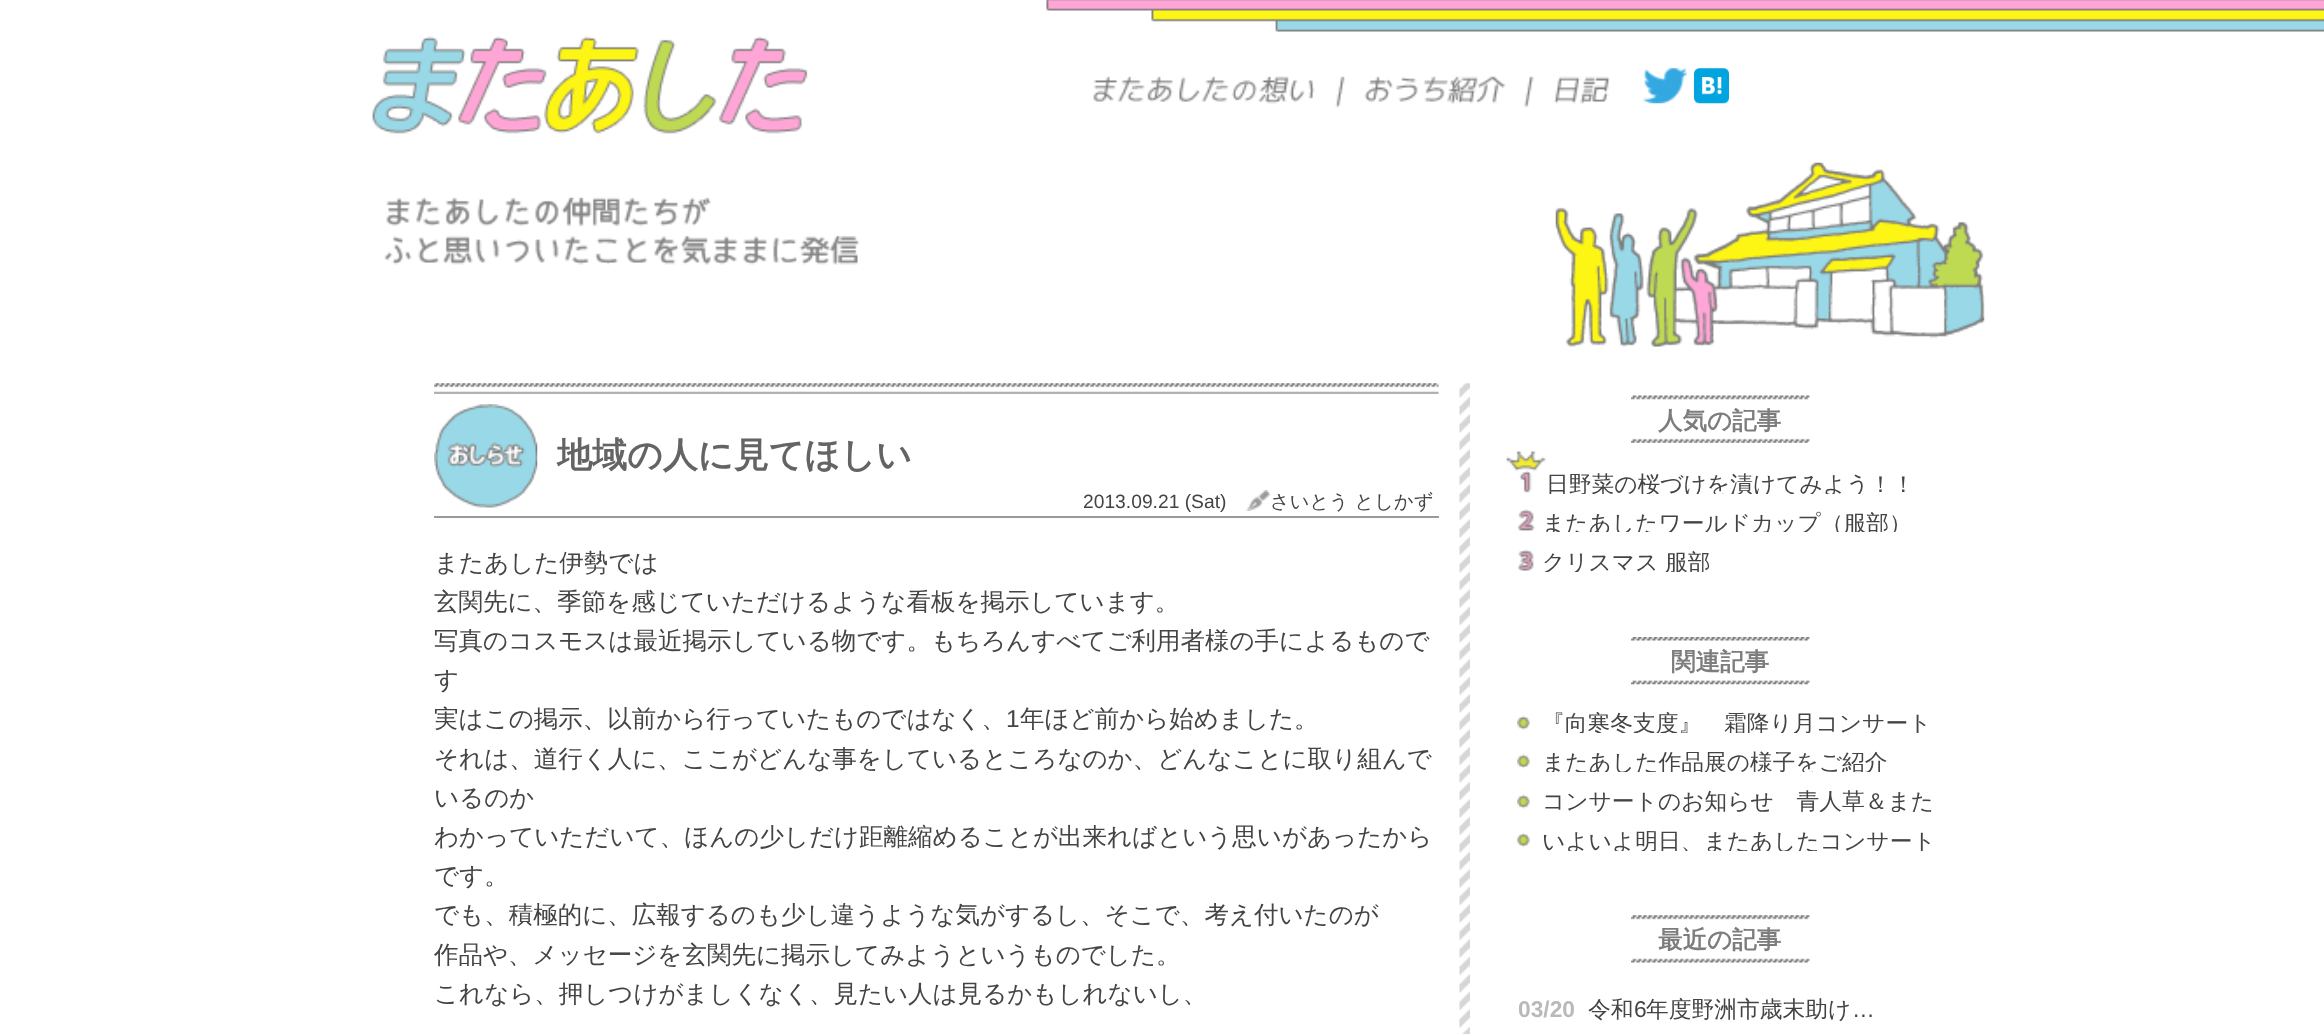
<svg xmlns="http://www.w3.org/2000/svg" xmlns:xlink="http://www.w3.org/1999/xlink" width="2324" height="1034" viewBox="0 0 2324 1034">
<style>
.cls-1{font:bold 35px WenQuanYi Zen Hei;fill:#646464}
.cls-2{font:19.25px Liberation Sans;fill:#444444}
.cls-3{font:500 19.25px WenQuanYi Zen Hei;fill:#444444}
.cls-4{font:500 24.5px WenQuanYi Zen Hei;fill:#444444}
.cls-5{font:24.5px Liberation Sans;fill:#444444}
.cls-6{font:bold 24.5px WenQuanYi Zen Hei;fill:#7d7d7d}
.cls-7{font:500 22.75px WenQuanYi Zen Hei;fill:#444444}
.cls-8{font:bold 22.75px Liberation Sans;fill:#b9b9b9}
.cls-9{font:22.75px Liberation Sans;fill:#444444}
</style>
<defs>
<clipPath id="clip1"><rect x="1505" y="450" width="438" height="44"/></clipPath>
<clipPath id="clip2"><rect x="1517" y="508" width="426" height="24"/></clipPath>
<clipPath id="clip3"><rect x="1517" y="548" width="426" height="24"/></clipPath>
<clipPath id="clip4"><rect x="1517" y="709" width="426" height="24"/></clipPath>
<clipPath id="clip5"><rect x="1517" y="747" width="426" height="25"/></clipPath>
<clipPath id="clip6"><rect x="1517" y="788" width="426" height="24"/></clipPath>
<clipPath id="clip7"><rect x="1517" y="826" width="426" height="25"/></clipPath>
</defs>
<rect width="100%" height="100%" fill="#ffffff"/>
<image xlink:href="image0.png" x="1046" y="0" width="1278" height="32"/>
<image xlink:href="image1.png" x="372" y="36" width="436" height="98"/>
<image xlink:href="image2.png" x="1093" y="76" width="517" height="32"/>
<image xlink:href="image3.png" x="1368" y="81" width="22" height="18"/>
<image xlink:href="image4.png" x="1643" y="68" width="44" height="36"/>
<image xlink:href="image5.png" x="1694" y="68" width="35" height="36"/>
<image xlink:href="image6.png" x="384" y="197" width="476" height="68"/>
<image xlink:href="image7.png" x="1555" y="162" width="430" height="185"/>
<image xlink:href="image8.png" x="1459" y="383" width="11" height="651"/>
<image xlink:href="image9.png" x="434" y="383" width="1005" height="11"/>
<image xlink:href="image10.png" x="434" y="404" width="104" height="104"/>
<rect fill="#9a9a9a" x="434" y="516" width="1005" height="2"/>
<image xlink:href="image11.png" x="1246" y="490" width="25" height="21"/>
<image xlink:href="image12.png" x="1631" y="395" width="179" height="48"/>
<image xlink:href="image13.png" x="1506" y="451" width="40" height="42"/>
<image xlink:href="image14.png" x="1517" y="509" width="18" height="22"/>
<image xlink:href="image15.png" x="1517" y="549" width="17" height="22"/>
<image xlink:href="image16.png" x="1631" y="637" width="179" height="48"/>
<image xlink:href="image17.png" x="1517" y="715" width="13" height="15"/>
<image xlink:href="image18.png" x="1517" y="754" width="13" height="15"/>
<image xlink:href="image19.png" x="1517" y="794" width="13" height="15"/>
<image xlink:href="image20.png" x="1517" y="833" width="13" height="14"/>
<image xlink:href="image21.png" x="1631" y="915" width="179" height="48"/>
<text class="cls-1" x="557" y="467">地域の人に見てほしい</text>
<text class="cls-2" x="1083" y="508">2013.09.21 (Sat)</text>
<text class="cls-3" x="1270" y="508">さいとう としかず</text>
<text class="cls-4"><tspan x="434" y="571">またあした伊勢では</tspan><tspan x="434" y="610">玄関先に、季節を感じていただけるような看板を掲示しています。</tspan><tspan x="434" y="649">写真のコスモスは最近掲示している物です。もちろんすべてご利用者様の手によるもので</tspan><tspan x="434" y="688">す</tspan><tspan x="434" y="727">実はこの掲示、以前から行っていたものではなく、</tspan></text>
<text class="cls-5" x="1006" y="727">1</text>
<text class="cls-4" x="1020" y="727">年ほど前から始めました。</text>
<text class="cls-4"><tspan x="434" y="767">それは、道行く人に、ここがどんな事をしているところなのか、どんなことに取り組んで</tspan><tspan x="434" y="806">いるのか</tspan><tspan x="434" y="845">わかっていただいて、ほんの少しだけ距離縮めることが出来ればという思いがあったから</tspan><tspan x="434" y="884">です。</tspan><tspan x="434" y="923">でも、積極的に、広報するのも少し違うような気がするし、そこで、考え付いたのが</tspan><tspan x="434" y="963">作品や、メッセージを玄関先に掲示してみようというものでした。</tspan><tspan x="434" y="1002">これなら、押しつけがましくなく、見たい人は見るかもしれないし、</tspan></text>
<text class="cls-6" x="1658" y="429">人気の記事</text>
<g clip-path="url(#clip1)">
<text class="cls-7" x="1546" y="492">日野菜の桜づけを漬けてみよう！！</text>
</g>
<g clip-path="url(#clip2)">
<text class="cls-7" x="1542" y="531">またあしたワールドカップ（服部）</text>
</g>
<g clip-path="url(#clip3)">
<text class="cls-7" x="1542" y="570">クリスマス</text>
<text class="cls-7" x="1665" y="570">服部</text>
</g>
<text class="cls-6" x="1671" y="670">関連記事</text>
<g clip-path="url(#clip4)">
<text class="cls-7" x="1542" y="731">『向寒冬支度』　霜降り月コンサート</text>
</g>
<g clip-path="url(#clip5)">
<text class="cls-7" x="1542" y="770">またあした作品展の様子をご紹介</text>
</g>
<g clip-path="url(#clip6)">
<text class="cls-7" x="1542" y="809">コンサートのお知らせ　青人草＆また</text>
</g>
<g clip-path="url(#clip7)">
<text class="cls-7" x="1542" y="849">いよいよ明日、またあしたコンサート</text>
</g>
<text class="cls-6" x="1658" y="948">最近の記事</text>
<text class="cls-8" x="1518" y="1017">03/20</text>
<text class="cls-7" x="1588" y="1017">令和</text>
<text class="cls-9" x="1634" y="1017">6</text>
<text class="cls-7" x="1646" y="1017">年度野洲市歳末助け</text>
<text class="cls-9" x="1852" y="1017">…</text>
</svg>
